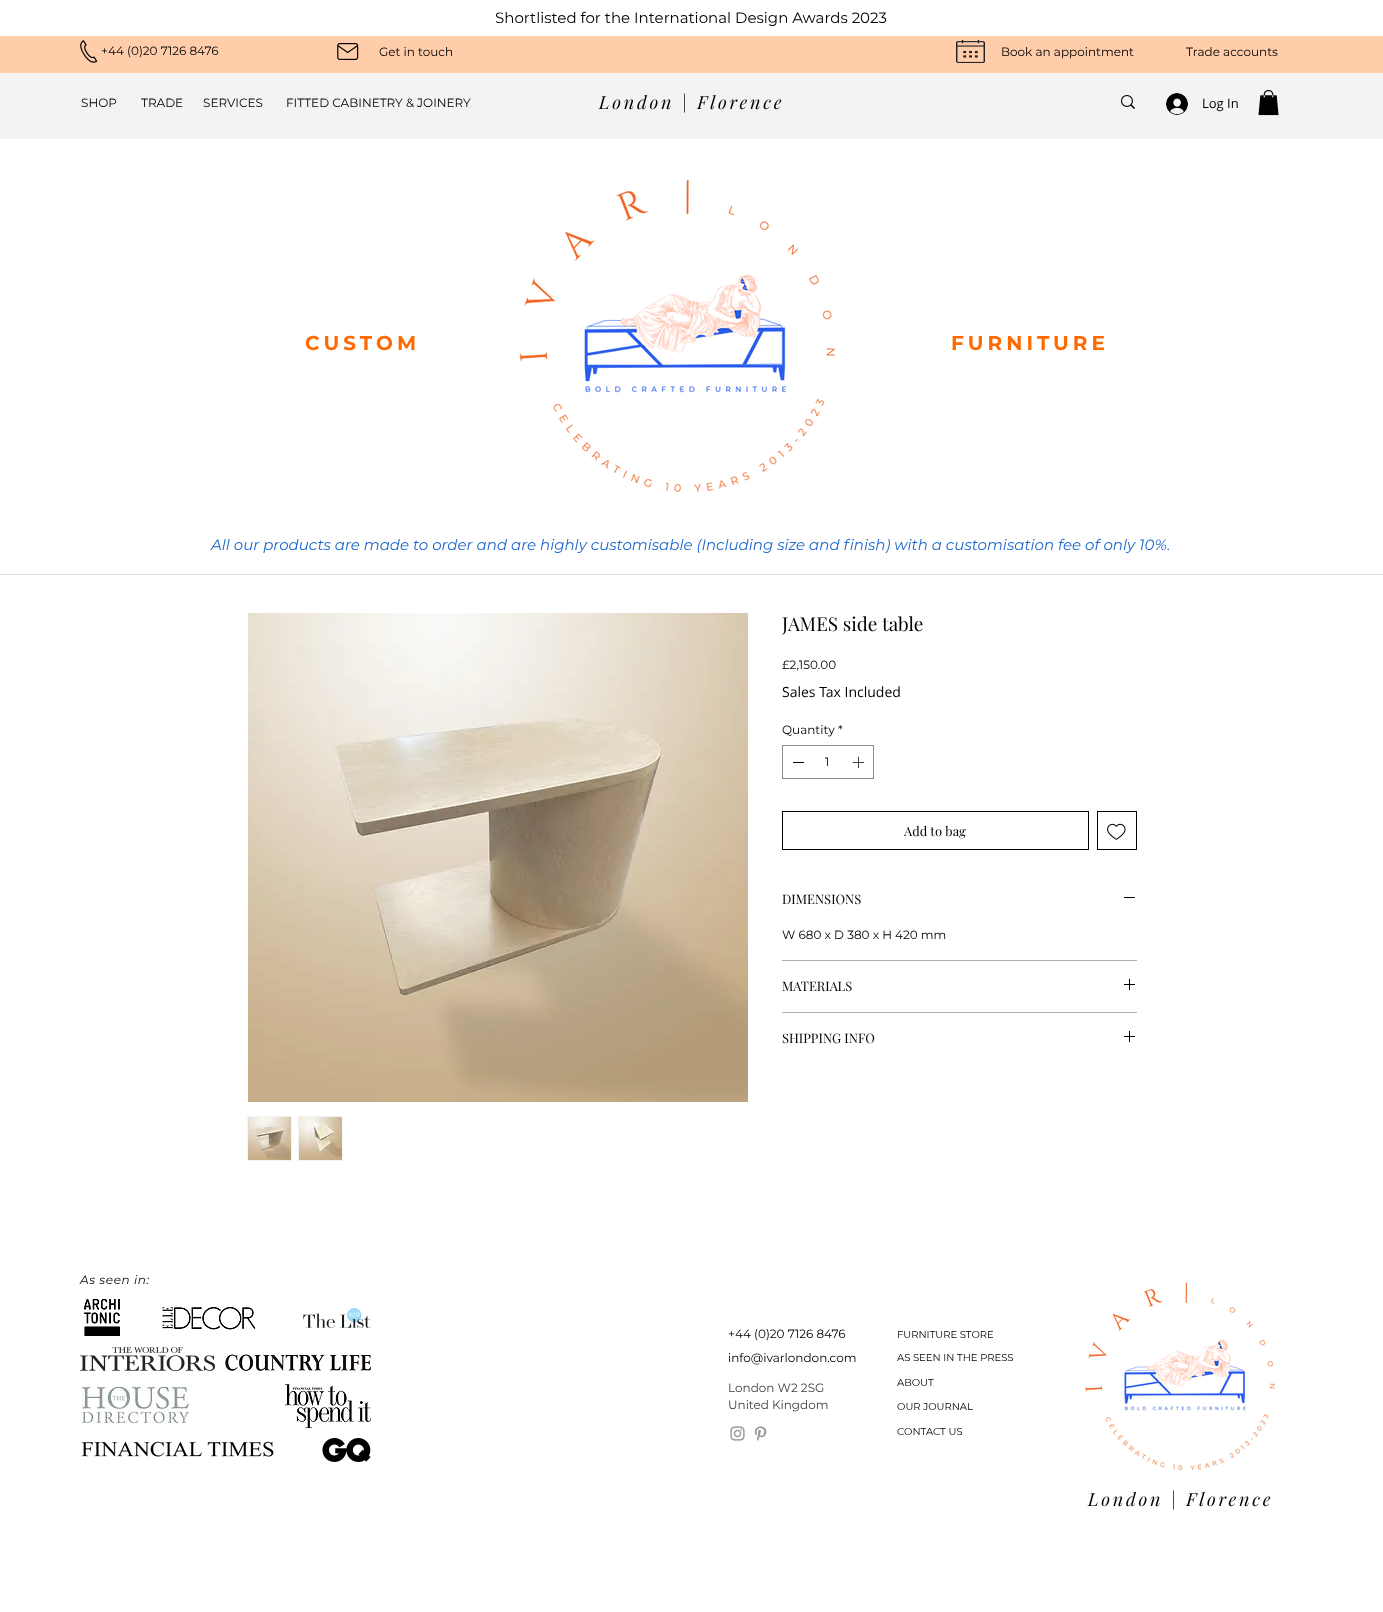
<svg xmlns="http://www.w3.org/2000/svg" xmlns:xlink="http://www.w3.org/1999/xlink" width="1383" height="1612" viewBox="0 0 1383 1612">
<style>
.cls-1{font:15px Montserrat;fill:#000000}
.cls-2{font:12px Montserrat;fill:#000000}
.cls-3{font:italic 18px Playfair Display;letter-spacing:2.75px;fill:#000000}
.cls-4{font:13px Open Sans;fill:#000000}
.cls-5{font:bold 20px Montserrat;letter-spacing:4px;fill:#ff6a00}
.cls-6{font:italic 15px Montserrat;fill:#1d67cd}
.cls-7{font:19px Playfair Display;fill:#000000}
.cls-8{font:14px Open Sans;fill:#000000}
.cls-9{font:13px Playfair Display;fill:#000000}
.cls-10{font:italic 12px Montserrat;letter-spacing:0.6px;fill:#000000}
.cls-11{font:12px Montserrat;fill:#414141}
.cls-12{font:10px Montserrat;fill:#000000}
</style>
<rect width="100%" height="100%" fill="#ffffff"/>
<rect fill="#ffcdaa" x="0" y="36" width="1383" height="37"/>
<image xlink:href="image0.png" x="80" y="40" width="18" height="23"/>
<image xlink:href="image1.png" x="337" y="43" width="22" height="17"/>
<image xlink:href="image2.png" x="956" y="40" width="29" height="23"/>
<rect fill="#f4f3f2" x="0" y="73" width="1383" height="66"/>
<image xlink:href="image3.png" x="1121" y="95" width="14" height="14"/>
<image xlink:href="image4.png" x="1166" y="93" width="22" height="22"/>
<image xlink:href="image5.png" x="1258" y="90" width="21" height="26"/>
<image xlink:href="image6.png" x="519" y="180" width="316" height="312"/>
<rect fill="#d9d9d9" x="0" y="574" width="1383" height="1"/>
<image xlink:href="image7.png" x="248" y="613" width="500" height="489"/>
<rect fill="#f4f3f2" x="247" y="1116" width="45" height="45"/>
<image xlink:href="image8.png" x="248" y="1117" width="43" height="43"/>
<rect fill="#f4f3f2" x="298" y="1116" width="45" height="45"/>
<image xlink:href="image9.png" x="299" y="1117" width="43" height="43"/>
<rect fill="none" stroke="#8d8d8d" x="782.5" y="745.5" width="91" height="33"/>
<rect fill="#000000" x="793" y="762" width="11" height="1"/>
<image xlink:href="image10.png" x="852" y="756" width="12" height="12"/>
<rect fill="none" stroke="#000000" x="782.5" y="811.5" width="306" height="38"/>
<rect fill="none" stroke="#000000" x="1097.5" y="811.5" width="39" height="38"/>
<image xlink:href="image11.png" x="1107" y="823" width="19" height="17"/>
<rect fill="#afafaf" x="782" y="960" width="355" height="1"/>
<rect fill="#000000" x="1124" y="897" width="11" height="1"/>
<rect fill="#afafaf" x="782" y="1012" width="355" height="1"/>
<image xlink:href="image12.png" x="1124" y="979" width="11" height="11"/>
<image xlink:href="image12.png" x="1124" y="1031" width="11" height="11"/>
<image xlink:href="image13.png" x="84" y="1299" width="36" height="37"/>
<image xlink:href="image14.png" x="162" y="1305" width="94" height="26"/>
<image xlink:href="image15.png" x="303" y="1308" width="68" height="20"/>
<image xlink:href="image16.png" x="80" y="1347" width="135" height="24"/>
<image xlink:href="image17.png" x="225" y="1354" width="146" height="17"/>
<image xlink:href="image18.png" x="80" y="1386" width="112" height="38"/>
<image xlink:href="image19.png" x="285" y="1384" width="86" height="45"/>
<image xlink:href="image20.png" x="81" y="1441" width="193" height="16"/>
<image xlink:href="image21.png" x="322" y="1438" width="49" height="24"/>
<image xlink:href="image22.png" x="730" y="1426" width="15" height="15"/>
<image xlink:href="image23.png" x="754" y="1426" width="13" height="15"/>
<image xlink:href="image24.png" x="1085" y="1282" width="190" height="189"/>
<text class="cls-1" x="495" y="23">Shortlisted for the International Design Awards 2023</text>
<text class="cls-2" x="101" y="55">+44 (0)20 7126 8476</text>
<text class="cls-2" x="379" y="56">Get in touch</text>
<text class="cls-2" x="1001" y="56">Book an appointment</text>
<text class="cls-2" x="1186" y="56">Trade accounts</text>
<text class="cls-2" x="81" y="107">SHOP</text>
<text class="cls-2" x="141" y="107">TRADE</text>
<text class="cls-2" x="203" y="107">SERVICES</text>
<text class="cls-2" x="286" y="107">FITTED CABINETRY &amp; JOINERY</text>
<text class="cls-3" x="599" y="109">London | Florence</text>
<text class="cls-4" x="1202" y="108">Log In</text>
<text class="cls-5" x="305" y="350">CUSTOM</text>
<text class="cls-5" x="951" y="350">FURNITURE</text>
<text class="cls-6" x="211" y="550">All our products are made to order and are highly customisable (Including size and finish) with a customisation fee of only 10%.</text>
<text class="cls-7" x="782" y="631">JAMES side table</text>
<text class="cls-2" x="782" y="669">£2,150.00</text>
<text class="cls-8" x="782" y="697">Sales Tax Included</text>
<text class="cls-2" x="782" y="734">Quantity</text>
<text class="cls-2" x="838" y="734">*</text>
<text class="cls-2" x="825" y="766">1</text>
<text class="cls-9" x="904" y="836">Add to bag</text>
<text class="cls-9" x="782" y="904">DIMENSIONS</text>
<text class="cls-2" x="782" y="939">W 680 x D 380 x H 420 mm</text>
<text class="cls-9" x="782" y="991">MATERIALS</text>
<text class="cls-9" x="782" y="1043">SHIPPING INFO</text>
<text class="cls-10" x="80" y="1284">As seen in:</text>
<text class="cls-2" x="728" y="1338">+44 (0)20 7126 8476</text>
<text class="cls-2" x="728" y="1362">info@ivarlondon.com</text>
<text class="cls-11"><tspan x="728" y="1392">London W2 2SG</tspan><tspan x="728" y="1409">United Kingdom</tspan></text>
<text class="cls-12" x="897" y="1338">FURNITURE STORE</text>
<text class="cls-12" x="897" y="1361">AS SEEN IN THE PRESS</text>
<text class="cls-12" x="897" y="1386">ABOUT</text>
<text class="cls-12" x="897" y="1410">OUR JOURNAL</text>
<text class="cls-12" x="897" y="1435">CONTACT US</text>
<text class="cls-3" x="1088" y="1506">London | Florence</text>
</svg>
